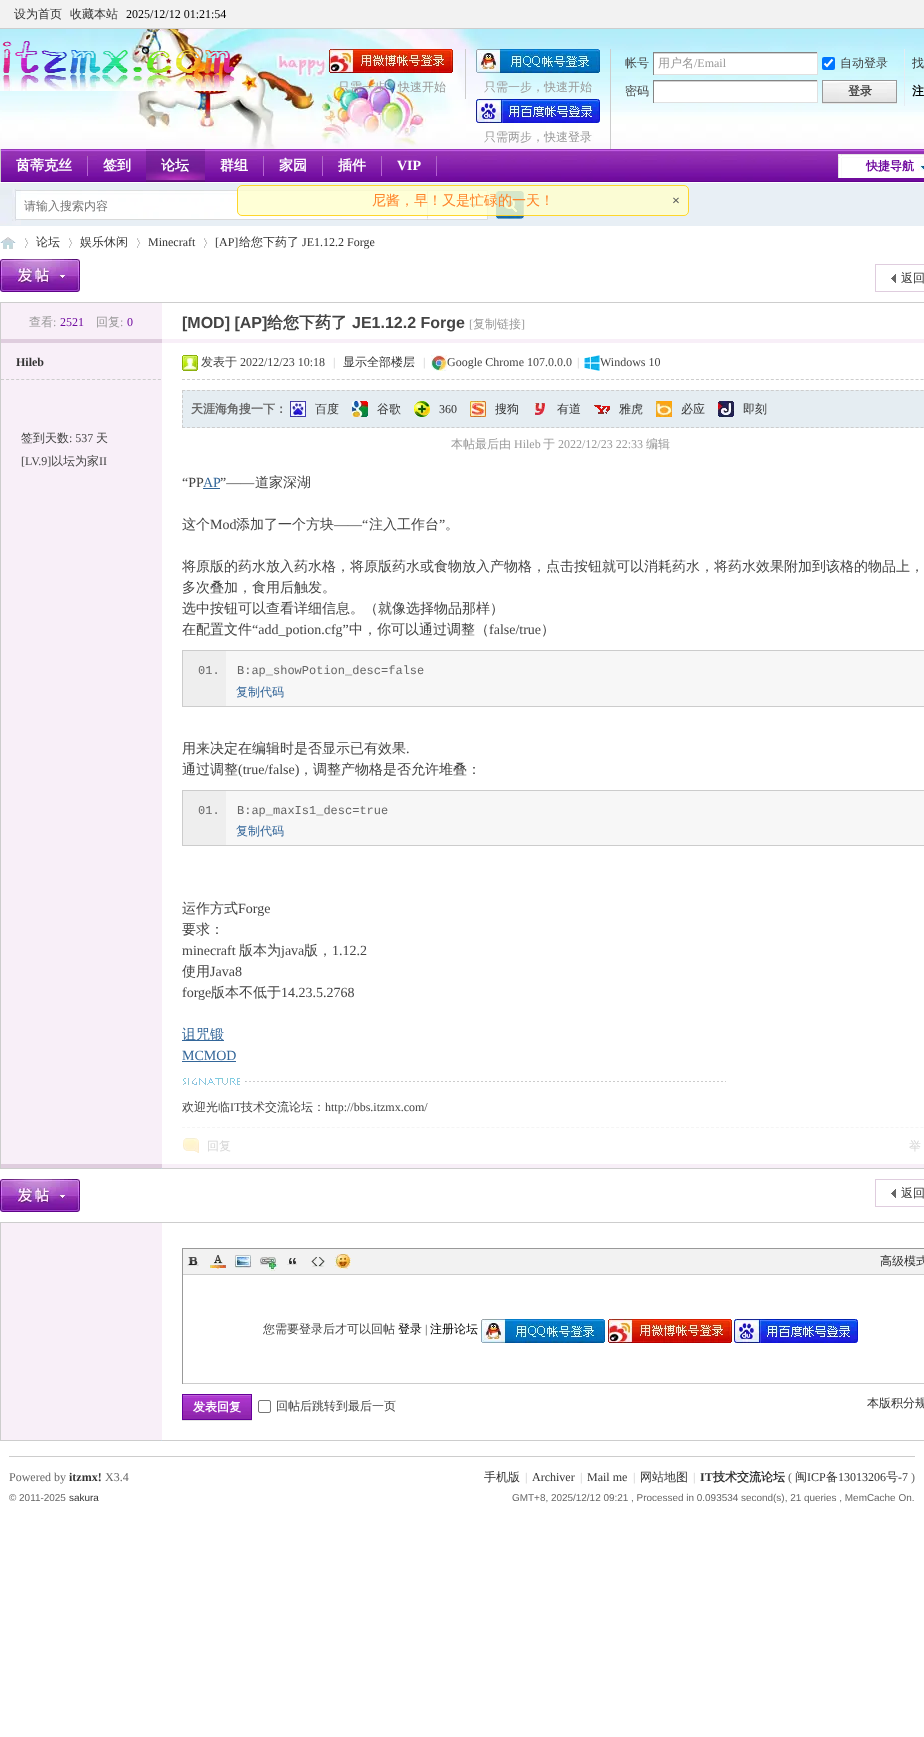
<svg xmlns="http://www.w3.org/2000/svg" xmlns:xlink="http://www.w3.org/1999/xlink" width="924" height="1737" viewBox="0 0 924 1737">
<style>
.cls-1{font:500 12px WenQuanYi Zen Hei;fill:#333333}
.cls-2{font:12px Liberation Serif;fill:#000000}
.cls-3{font:500 12px WenQuanYi Zen Hei;fill:#999999}
.cls-4{font:500 12px WenQuanYi Zen Hei;fill:#444444}
.cls-5{font:12px Liberation Serif;fill:#999999}
.cls-6{font:bold 12px WenQuanYi Zen Hei;fill:#444444}
.cls-7{font:bold 12px WenQuanYi Zen Hei;fill:#000000}
.cls-8{font:bold 14px WenQuanYi Zen Hei;fill:#ffffff}
.cls-9{font:bold 14px Liberation Serif;fill:#ffffff}
.cls-10{font:bold 12px WenQuanYi Zen Hei;fill:#6f099e}
.cls-11{font:500 12px WenQuanYi Zen Hei;fill:#757575}
.cls-12{font:500 14px WenQuanYi Zen Hei;fill:#fe842a}
.cls-13{font:bold 14px Liberation Serif;fill:#57595a}
.cls-14{font:12px Liberation Serif;fill:#333333}
.cls-15{font:12px Liberation Serif;fill:#6f099e}
.cls-16{font:bold 16px Liberation Sans;fill:#444444}
.cls-17{font:bold 16px WenQuanYi Zen Hei;fill:#444444}
.cls-18{font:bold 12px Liberation Serif;fill:#333333}
.cls-19{font:12px Liberation Serif;fill:#444444}
.cls-20{font:12px Liberation Serif;fill:#cccccc}
.cls-21{font:bold 12px WenQuanYi Zen Hei;fill:#666666}
.cls-22{font:14px Liberation Serif;fill:#444444}
.cls-23{font:14px Liberation Serif;fill:#336699}
.cls-24{font:500 14px WenQuanYi Zen Hei;fill:#444444}
.cls-25{font:12px Liberation Mono;fill:#666666}
.cls-26{font:500 12px WenQuanYi Zen Hei;fill:#336699}
.cls-27{font:500 14px WenQuanYi Zen Hei;fill:#336699}
.cls-28{font:500 12px WenQuanYi Zen Hei;fill:#d6d6d6}
.cls-29{font:500 12px WenQuanYi Zen Hei;fill:#000000}
.cls-30{font:bold 12px WenQuanYi Zen Hei;fill:#ffffff}
.cls-31{font:12px Liberation Serif;fill:#666666}
.cls-32{font:9.95px Liberation Sans;fill:#666666}
.cls-33{font:9.95px Liberation Sans;fill:#333333}
.cls-34{font:bold 12px WenQuanYi Zen Hei;fill:#333333}
</style>
<rect width="100%" height="100%" fill="#ffffff"/>
<image xlink:href="image0.png" x="0" y="29" width="924" height="120"/>
<rect fill="#f2f2f2" x="0" y="0" width="924" height="28"/>
<rect fill="#cdcdcd" x="0" y="28" width="924" height="1"/>
<image xlink:href="image1.png" x="0" y="41" width="237" height="50"/>
<rect fill="#cdcdcd" x="465" y="49" width="1" height="50"/>
<image xlink:href="image2.png" x="329" y="49" width="124" height="24"/>
<rect fill="#cdcdcd" x="610" y="49" width="1" height="100"/>
<image xlink:href="image3.png" x="476" y="49" width="124" height="24"/>
<rect fill="#ffffff" x="654" y="54" width="163" height="20"/>
<rect fill="#d4d4d4" x="653" y="53" width="165" height="1"/>
<rect fill="#848484" x="653" y="52" width="165" height="1"/>
<rect fill="#e0e0e0" x="817" y="52" width="1" height="23"/>
<rect fill="#e0e0e0" x="653" y="74" width="165" height="1"/>
<rect fill="#848484" x="653" y="52" width="1" height="23"/>
<rect fill="#0075ff" x="822" y="57" width="13" height="13" rx="2"/>
<path fill="none" stroke="#ffffff" stroke-width="2.1" d="M824.5 63.5L827 66L832.5 59.5"/>
<rect fill="#ffffff" x="654" y="82" width="163" height="20"/>
<rect fill="#d4d4d4" x="653" y="81" width="165" height="1"/>
<rect fill="#848484" x="653" y="80" width="165" height="1"/>
<rect fill="#e0e0e0" x="817" y="80" width="1" height="23"/>
<rect fill="#e0e0e0" x="653" y="102" width="165" height="1"/>
<rect fill="#848484" x="653" y="80" width="1" height="23"/>
<rect fill="#e5edf2" x="904" y="49" width="1" height="57"/>
<rect fill="#e5e5e5" x="822" y="103" width="75" height="1"/>
<image xlink:href="image4.png" x="823" y="81" width="73" height="21"/>
<rect fill="none" stroke="#999999" x="822.5" y="80.5" width="74" height="22"/>
<image xlink:href="image5.png" x="476" y="99" width="124" height="24"/>
<image xlink:href="image6.png" x="1" y="149" width="923" height="33"/>
<rect fill="#cdcdcd" x="0" y="149" width="1" height="33"/>
<image xlink:href="image7.png" x="87" y="156" width="1" height="20"/>
<image xlink:href="image8.png" x="146" y="149" width="59" height="33"/>
<image xlink:href="image7.png" x="263" y="156" width="1" height="20"/>
<image xlink:href="image7.png" x="322" y="156" width="1" height="20"/>
<image xlink:href="image7.png" x="381" y="156" width="1" height="20"/>
<image xlink:href="image9.png" x="436" y="156" width="1" height="20"/>
<image xlink:href="image10.png" x="838" y="154" width="86" height="24"/>
<rect fill="#e8eff5" x="0" y="183" width="924" height="43"/>
<image xlink:href="image11.png" x="0" y="183" width="21" height="42"/>
<image xlink:href="image12.png" x="21" y="190" width="406" height="30"/>
<rect fill="#ffffff" x="37" y="195" width="390" height="3"/>
<image xlink:href="image13.png" x="427" y="190" width="61" height="30"/>
<image xlink:href="image14.png" x="496" y="191" width="28" height="28"/>
<rect fill="#ffffcc" fill-opacity="0.8" x="237" y="185" width="452" height="31" rx="5"/>
<rect fill="none" stroke="#ffcc00" stroke-opacity="0.8" x="237.5" y="185.5" width="451" height="30" rx="4.5"/>
<image xlink:href="image15.png" x="0" y="237" width="16" height="12"/>
<image xlink:href="image16.png" x="25" y="238" width="4" height="10"/>
<image xlink:href="image16.png" x="69" y="238" width="4" height="10"/>
<image xlink:href="image16.png" x="137" y="238" width="4" height="10"/>
<image xlink:href="image16.png" x="204" y="238" width="4" height="10"/>
<image xlink:href="image17.png" x="0" y="259" width="80" height="33"/>
<image xlink:href="image18.png" x="891" y="274" width="5" height="9"/>
<rect fill="none" stroke="#dfcdde" x="875.5" y="264.5" width="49" height="27"/>
<rect fill="none" stroke="#cdcdcd" x="0.5" y="302.5" width="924" height="866"/>
<rect fill="#f8eff8" x="1" y="303" width="161" height="36"/>
<rect fill="#dfcdde" x="1" y="339" width="161" height="4"/>
<rect fill="#f8eff8" x="162" y="339" width="762" height="4"/>
<rect fill="#f8eff8" x="1" y="343" width="161" height="821"/>
<path fill="none" stroke="#cdcdcd" stroke-dasharray="3 2.06" d="M1 379.5H161"/>
<path fill="none" stroke="#cdcdcd" stroke-dasharray="3 1.99" d="M182 379.5H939"/>
<image xlink:href="image19.png" x="182" y="355" width="16" height="16"/>
<image xlink:href="image20.png" x="431" y="355" width="16" height="16"/>
<image xlink:href="image21.png" x="584" y="355" width="16" height="16"/>
<rect fill="#e5edf2" x="182" y="390" width="742" height="38"/>
<path fill="none" stroke="#cdcdcd" stroke-dasharray="3 1.99" d="M182 390.5H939"/>
<path fill="none" stroke="#cdcdcd" stroke-dasharray="3 1.99" d="M182 427.5H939"/>
<path fill="none" stroke="#cdcdcd" stroke-dasharray="3 2" d="M182.5 390V428"/>
<image xlink:href="image22.png" x="290" y="401" width="16" height="16"/>
<image xlink:href="image23.png" x="352" y="401" width="16" height="16"/>
<image xlink:href="image24.png" x="414" y="401" width="16" height="16"/>
<image xlink:href="image25.png" x="470" y="401" width="16" height="16"/>
<image xlink:href="image26.png" x="535" y="403" width="10" height="12"/>
<image xlink:href="image27.png" x="594" y="405" width="16" height="9"/>
<image xlink:href="image28.png" x="656" y="401" width="16" height="16"/>
<image xlink:href="image29.png" x="718" y="401" width="16" height="16"/>
<rect fill="#336699" x="203" y="488" width="17" height="1"/>
<rect fill="#f7f7f7" x="226" y="651" width="698" height="55"/>
<rect fill="#eeeeee" x="183" y="651" width="43" height="55"/>
<rect fill="none" stroke="#cccccc" x="182.5" y="650.5" width="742" height="56"/>
<rect fill="#f7f7f7" x="226" y="791" width="698" height="54"/>
<rect fill="#eeeeee" x="183" y="791" width="43" height="54"/>
<rect fill="none" stroke="#cccccc" x="182.5" y="790.5" width="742" height="55"/>
<rect fill="#336699" x="182" y="1040" width="42" height="1"/>
<rect fill="#336699" x="182" y="1061" width="54" height="1"/>
<image xlink:href="image30.png" x="183" y="1078" width="543" height="7"/>
<path fill="none" stroke="#f5f5f5" stroke-dasharray="3 1.99" d="M182 1127.5H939"/>
<image xlink:href="image31.png" x="183" y="1138" width="16" height="15"/>
<rect fill="#c2d5e3" x="161" y="1164" width="1" height="5"/>
<rect fill="#dfcdde" x="1" y="1164" width="161" height="4"/>
<rect fill="#f8eff8" x="162" y="1164" width="762" height="4"/>
<image xlink:href="image17.png" x="0" y="1179" width="80" height="33"/>
<image xlink:href="image18.png" x="891" y="1189" width="5" height="9"/>
<rect fill="none" stroke="#dfcdde" x="875.5" y="1179.5" width="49" height="27"/>
<rect fill="none" stroke="#cdcdcd" x="0.5" y="1222.5" width="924" height="218"/>
<rect fill="#c2d5e3" x="161" y="1440" width="1" height="1"/>
<rect fill="#f8eff8" x="1" y="1223" width="161" height="217"/>
<rect fill="#999999" x="182" y="1248" width="742" height="1"/>
<rect fill="#cccccc" x="182" y="1383" width="742" height="1"/>
<rect fill="#999999" x="182" y="1248" width="1" height="136"/>
<rect fill="#f2f2f2" x="183" y="1249" width="741" height="25"/>
<rect fill="#cdcdcd" x="183" y="1274" width="741" height="1"/>
<image xlink:href="image32.png" x="187" y="1257" width="12" height="9"/>
<image xlink:href="image33.png" x="210" y="1255" width="16" height="14"/>
<image xlink:href="image34.png" x="235" y="1255" width="17" height="13"/>
<image xlink:href="image35.png" x="260" y="1257" width="18" height="14"/>
<image xlink:href="image36.png" x="287" y="1258" width="10" height="7"/>
<image xlink:href="image37.png" x="311" y="1257" width="14" height="10"/>
<image xlink:href="image38.png" x="334" y="1254" width="17" height="15"/>
<image xlink:href="image39.png" x="481" y="1319" width="124" height="24"/>
<image xlink:href="image40.png" x="608" y="1319" width="124" height="24"/>
<image xlink:href="image41.png" x="734" y="1319" width="124" height="24"/>
<rect fill="#e5e5e5" x="182" y="1420" width="70" height="1"/>
<image xlink:href="image42.png" x="183" y="1395" width="68" height="24"/>
<rect fill="none" stroke="#660099" x="182.5" y="1394.5" width="69" height="25"/>
<rect fill="none" stroke="#767676" x="258.5" y="1400.5" width="12" height="12" rx="1.5"/>
<rect fill="#cdcdcd" x="9" y="1456" width="906" height="1"/>
<text class="cls-1" x="14" y="18">设为首页</text>
<text class="cls-1" x="70" y="18">收藏本站</text>
<text class="cls-2" x="126" y="18">2025/12/12 01:21:54</text>
<text class="cls-3" x="338" y="91">只需一步，快速开始</text>
<text class="cls-3" x="484" y="91">只需一步，快速开始</text>
<text class="cls-4" x="625" y="67">帐号</text>
<text class="cls-3" x="658" y="67">用户名</text>
<text class="cls-5" x="694" y="67">/Email</text>
<text class="cls-4" x="840" y="67">自动登录</text>
<text class="cls-1" x="912" y="67">找</text>
<text class="cls-4" x="625" y="95">密码</text>
<text class="cls-6" x="848" y="95">登录</text>
<text class="cls-7" x="912" y="95">注</text>
<text class="cls-3" x="484" y="141">只需两步，快速登录</text>
<text class="cls-8" x="16" y="170">茵蒂克丝</text>
<text class="cls-8" x="103" y="170">签到</text>
<text class="cls-8" x="161" y="170">论坛</text>
<text class="cls-8" x="220" y="170">群组</text>
<text class="cls-8" x="279" y="170">家园</text>
<text class="cls-8" x="338" y="170">插件</text>
<text class="cls-9" x="397" y="170">VIP</text>
<text class="cls-10" x="866" y="170">快捷导航</text>
<text class="cls-11" x="24" y="210">请输入搜索内容</text>
<text class="cls-12" x="372" y="205">尼酱，早！又是忙碌的一天！</text>
<text class="cls-13" x="672" y="205">×</text>
<text class="cls-1" x="36" y="246">论坛</text>
<text class="cls-1" x="80" y="246">娱乐休闲</text>
<text class="cls-14" x="148" y="246">Minecraft</text>
<text class="cls-14" x="215" y="246">[AP]</text>
<text class="cls-1" x="239" y="246">给您下药了</text>
<text class="cls-14" x="302" y="246">JE1.12.2 Forge</text>
<text class="cls-1" x="901" y="282">返回</text>
<text class="cls-3" x="29" y="326">查看</text>
<text class="cls-5" x="53" y="326">:</text>
<text class="cls-15" x="60" y="326">2521</text>
<text class="cls-3" x="96" y="326">回复</text>
<text class="cls-5" x="120" y="326">:</text>
<text class="cls-15" x="127" y="326">0</text>
<text class="cls-16" x="182" y="328">[MOD] [AP]</text>
<text class="cls-17" x="267" y="328">给您下药了</text>
<text class="cls-16" x="352" y="328">JE1.12.2 Forge</text>
<text class="cls-5" x="469" y="328">[</text>
<text class="cls-3" x="473" y="328">复制链接</text>
<text class="cls-5" x="521" y="328">]</text>
<text class="cls-18" x="16" y="366">Hileb</text>
<text class="cls-4" x="21" y="442">签到天数</text>
<text class="cls-19" x="69" y="442">: 537</text>
<text class="cls-4" x="96" y="442">天</text>
<text class="cls-19" x="21" y="465">[LV.9]</text>
<text class="cls-4" x="51" y="465">以坛为家</text>
<text class="cls-19" x="99" y="465">II</text>
<text class="cls-4" x="201" y="366">发表于</text>
<text class="cls-19" x="240" y="366">2022/12/23 10:18</text>
<text class="cls-20" x="333" y="366">|</text>
<text class="cls-1" x="343" y="366">显示全部楼层</text>
<text class="cls-20" x="423" y="366">|</text>
<text class="cls-19" x="447" y="366">Google Chrome 107.0.0.0</text>
<text class="cls-20" x="577" y="366">|</text>
<text class="cls-19" x="600" y="366">Windows 10</text>
<text class="cls-21" x="191" y="413">天涯海角搜一下：</text>
<text class="cls-1" x="315" y="413">百度</text>
<text class="cls-1" x="377" y="413">谷歌</text>
<text class="cls-14" x="439" y="413">360</text>
<text class="cls-1" x="495" y="413">搜狗</text>
<text class="cls-1" x="557" y="413">有道</text>
<text class="cls-1" x="619" y="413">雅虎</text>
<text class="cls-1" x="681" y="413">必应</text>
<text class="cls-1" x="743" y="413">即刻</text>
<text class="cls-3" x="451" y="448">本帖最后由</text>
<text class="cls-5" x="514" y="448">Hileb</text>
<text class="cls-3" x="543" y="448">于</text>
<text class="cls-5" x="558" y="448">2022/12/23 22:33</text>
<text class="cls-3" x="646" y="448">编辑</text>
<text class="cls-22" x="182" y="487">“PP</text>
<text class="cls-23" x="203" y="487">AP</text>
<text class="cls-22" x="220" y="487">”——</text>
<text class="cls-24" x="255" y="487">道家深湖</text>
<text class="cls-24" x="182" y="529">这个</text>
<text class="cls-22" x="210" y="529">Mod</text>
<text class="cls-24" x="236" y="529">添加了一个方块</text>
<text class="cls-22" x="334" y="529">——“</text>
<text class="cls-24" x="369" y="529">注入工作台</text>
<text class="cls-22" x="439" y="529">”</text>
<text class="cls-24" x="445" y="529">。</text>
<text class="cls-24"><tspan x="182" y="571">将原版的药水放入药水格，将原版药水或食物放入产物格，点击按钮就可以消耗药水，将药水效果附加到该格的物品上，</tspan><tspan x="182" y="592">多次叠加，食用后触发。</tspan><tspan x="182" y="613">选中按钮可以查看详细信息。（就像选择物品那样）</tspan><tspan x="182" y="634">在配置文件</tspan></text>
<text class="cls-22" x="252" y="634">“add_potion.cfg”</text>
<text class="cls-24" x="349" y="634">中，你可以通过调整（</text>
<text class="cls-22" x="489" y="634">false/true</text>
<text class="cls-24" x="541" y="634">）</text>
<text class="cls-25" x="198" y="674">01.</text>
<text class="cls-25" x="237" y="674">B:ap_showPotion_desc=false</text>
<text class="cls-26" x="236" y="696">复制代码</text>
<text class="cls-24" x="182" y="753">用来决定在编辑时是否显示已有效果</text>
<text class="cls-22" x="406" y="753">.</text>
<text class="cls-24" x="182" y="774">通过调整</text>
<text class="cls-22" x="238" y="774">(true/false)</text>
<text class="cls-24" x="299" y="774">，调整产物格是否允许堆叠：</text>
<text class="cls-25" x="198" y="814">01.</text>
<text class="cls-25" x="237" y="814">B:ap_maxIs1_desc=true</text>
<text class="cls-26" x="236" y="835">复制代码</text>
<text class="cls-24" x="182" y="913">运作方式</text>
<text class="cls-22" x="238" y="913">Forge</text>
<text class="cls-24" x="182" y="934">要求：</text>
<text class="cls-22" x="182" y="955">minecraft</text>
<text class="cls-24" x="239" y="955">版本为</text>
<text class="cls-22" x="281" y="955">java</text>
<text class="cls-24" x="304" y="955">版，</text>
<text class="cls-22" x="332" y="955">1.12.2</text>
<text class="cls-24" x="182" y="976">使用</text>
<text class="cls-22" x="210" y="976">Java8</text>
<text class="cls-22" x="182" y="997">forge</text>
<text class="cls-24" x="211" y="997">版本不低于</text>
<text class="cls-22" x="281" y="997">14.23.5.2768</text>
<text class="cls-27" x="182" y="1039">诅咒锻</text>
<text class="cls-23" x="182" y="1060">MCMOD</text>
<text class="cls-4" x="182" y="1111">欢迎光临</text>
<text class="cls-19" x="230" y="1111">IT</text>
<text class="cls-4" x="241" y="1111">技术交流论坛：</text>
<text class="cls-19" x="325" y="1111">http://bbs.itzmx.com/</text>
<text class="cls-28" x="207" y="1150">回复</text>
<text class="cls-28" x="909" y="1150">举</text>
<text class="cls-1" x="901" y="1197">返回</text>
<text class="cls-1" x="880" y="1265">高级模式</text>
<text class="cls-4" x="263" y="1333">您需要登录后才可以回帖</text>
<text class="cls-29" x="398" y="1333">登录</text>
<text class="cls-19" x="425" y="1333">|</text>
<text class="cls-29" x="430" y="1333">注册论坛</text>
<text class="cls-30" x="193" y="1411">发表回复</text>
<text class="cls-4" x="276" y="1410">回帖后跳转到最后一页</text>
<text class="cls-1" x="867" y="1407">本版积分规</text>
<text class="cls-31" x="9" y="1481">Powered by</text>
<text class="cls-18" x="69" y="1481">itzmx!</text>
<text class="cls-31" x="105" y="1481">X3.4</text>
<text class="cls-32" x="9" y="1501">© 2011-2025</text>
<text class="cls-33" x="69" y="1501">sakura</text>
<text class="cls-1" x="484" y="1481">手机版</text>
<text class="cls-20" x="525" y="1481">|</text>
<text class="cls-14" x="532" y="1481">Archiver</text>
<text class="cls-20" x="580" y="1481">|</text>
<text class="cls-14" x="587" y="1481">Mail me</text>
<text class="cls-20" x="633" y="1481">|</text>
<text class="cls-1" x="640" y="1481">网站地图</text>
<text class="cls-20" x="693" y="1481">|</text>
<text class="cls-18" x="700" y="1481">IT</text>
<text class="cls-34" x="713" y="1481">技术交流论坛</text>
<text class="cls-31" x="788" y="1481">(</text>
<text class="cls-1" x="795" y="1481">闽</text>
<text class="cls-14" x="807" y="1481">ICP</text>
<text class="cls-1" x="826" y="1481">备</text>
<text class="cls-14" x="838" y="1481">13013206</text>
<text class="cls-1" x="886" y="1481">号</text>
<text class="cls-14" x="898" y="1481">-7</text>
<text class="cls-31" x="911" y="1481">)</text>
<text class="cls-32" x="512" y="1501">GMT+8, 2025/12/12 09:21 , Processed in 0.093534 second(s), 21 queries , MemCache On.</text>
</svg>
